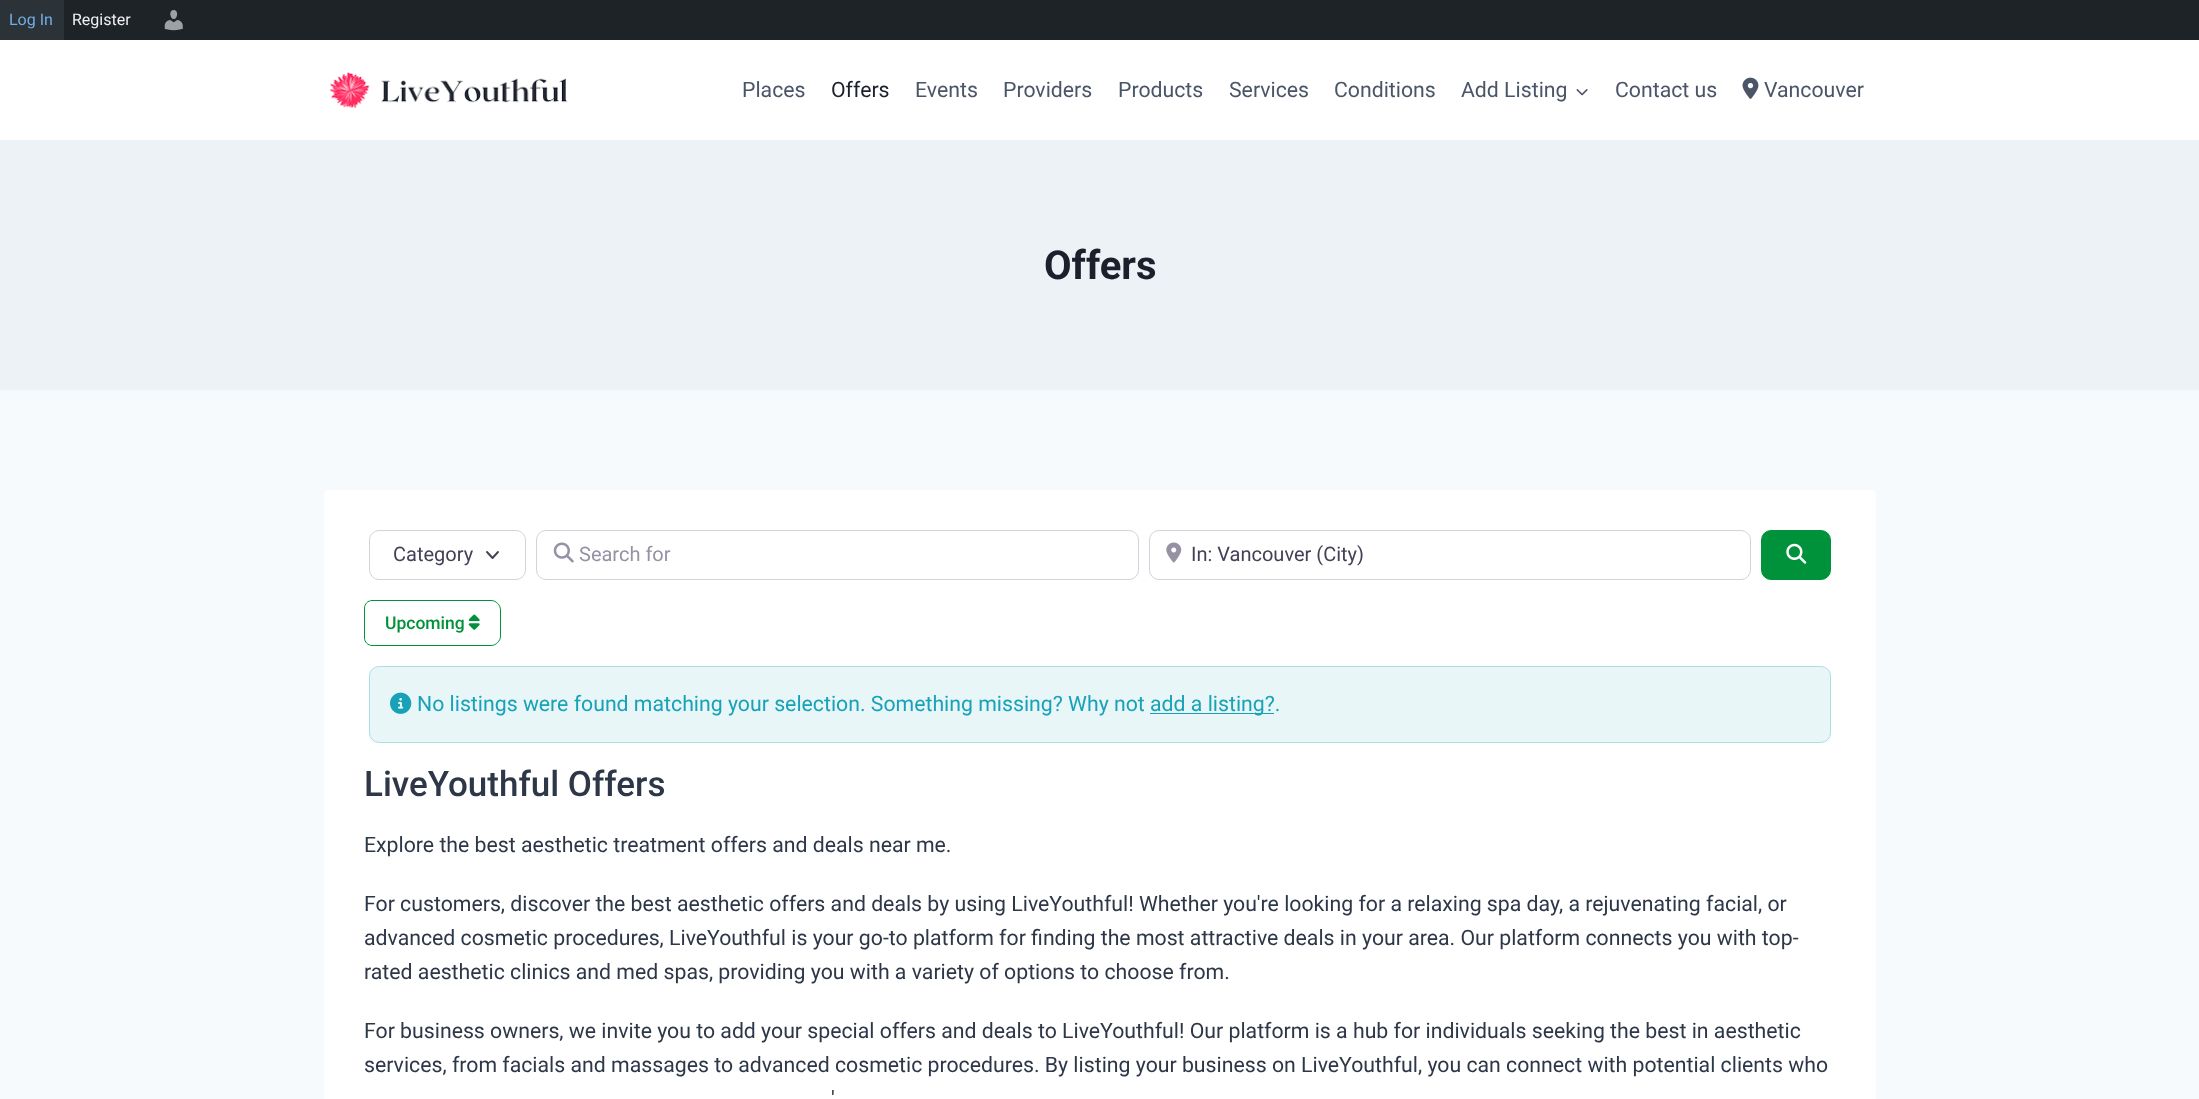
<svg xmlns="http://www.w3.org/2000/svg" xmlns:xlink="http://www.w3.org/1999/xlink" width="2199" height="1099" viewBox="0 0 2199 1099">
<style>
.cls-1{font:16px Roboto;fill:#72aee6}
.cls-2{font:16px Roboto;fill:#f0f0f1}
.cls-3{font:21.25px Roboto;fill:#4a5568}
.cls-4{font:21.25px Roboto;fill:#1a202c}
.cls-5{font:bold 40px Roboto;fill:#1a202c}
.cls-6{font:20px Roboto;fill:#454056}
.cls-7{font:20px Roboto;fill:#9691a4}
.cls-8{font:500 17.5px Roboto;fill:#00923a}
.cls-9{font:21.25px Roboto;fill:#17a2b8}
.cls-10{font:500 35px Roboto;fill:#2d3748}
.cls-11{font:21.25px Roboto;fill:#2d3748}
</style>
<rect width="100%" height="100%" fill="#f7fafc"/>
<rect fill="#1d2327" x="64" y="0" width="2135" height="40"/>
<rect fill="#2c3338" x="0" y="0" width="64" height="40"/>
<image xlink:href="image0.png" x="164" y="10" width="19" height="21"/>
<rect fill="#ffffff" x="0" y="40" width="2199" height="100"/>
<image xlink:href="image1.png" x="329" y="72" width="239" height="37"/>
<image xlink:href="image2.png" x="1576" y="89" width="12" height="7"/>
<image xlink:href="image3.png" x="1742" y="77" width="17" height="22"/>
<rect fill="#edf2f7" x="0" y="140" width="2199" height="250"/>
<rect fill="#ffffff" x="324" y="490" width="1552" height="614" rx="5"/>
<path fill="none" stroke="#454056" stroke-width="1.9" stroke-linecap="round" stroke-linejoin="round" d="M487 552L492.5 558L498 552"/>
<rect fill="none" stroke="#d5d2dc" x="369.5" y="530.5" width="156" height="49" rx="9.5"/>
<rect fill="none" stroke="#d5d2dc" x="536.5" y="530.5" width="602" height="49" rx="9.5"/>
<image xlink:href="image4.png" x="553" y="542" width="21" height="21"/>
<rect fill="none" stroke="#d5d2dc" x="1149.5" y="530.5" width="601" height="49" rx="9.5"/>
<image xlink:href="image5.png" x="1166" y="542" width="16" height="21"/>
<rect fill="#00923a" stroke="#00923a" x="1761.5" y="530.5" width="69" height="49" rx="9.5"/>
<image xlink:href="image6.png" x="1786" y="543" width="21" height="21"/>
<path fill="none" stroke="#00923a" d="M372 600.5H491C496 600.5 500.5 605 500.5 610V636C500.5 641 496 645.5 491 645.5H372C368 645.5 364.5 642 364.5 638V608C364.5 604 368 600.5 372 600.5Z"/>
<image xlink:href="image7.png" x="468" y="614" width="12" height="16"/>
<rect fill="#e8f6f8" stroke="#aedee6" x="369.5" y="666.5" width="1461" height="76" rx="9.5"/>
<image xlink:href="image8.png" x="390" y="692" width="22" height="22"/>
<rect fill="#17a2b8" x="1150" y="713" width="124" height="1"/>
<text class="cls-1" x="9" y="25">Log In</text>
<text class="cls-2" x="72" y="25">Register</text>
<text class="cls-3" x="742" y="97">Places</text>
<text class="cls-4" x="831" y="97">Offers</text>
<text class="cls-3" x="915" y="97">Events</text>
<text class="cls-3" x="1003" y="97">Providers</text>
<text class="cls-3" x="1118" y="97">Products</text>
<text class="cls-3" x="1229" y="97">Services</text>
<text class="cls-3" x="1334" y="97">Conditions</text>
<text class="cls-3" x="1461" y="97">Add Listing</text>
<text class="cls-3" x="1615" y="97">Contact us</text>
<text class="cls-3" x="1764" y="97">Vancouver</text>
<text class="cls-5" x="1044" y="279">Offers</text>
<text class="cls-6" x="393" y="561">Category</text>
<text class="cls-7" x="579" y="561">Search for</text>
<text class="cls-6" x="1191" y="561">In: Vancouver (City)</text>
<text class="cls-8" x="385" y="629">Upcoming</text>
<text class="cls-9" x="417" y="711">No listings were found matching your selection. Something missing? Why not</text>
<text class="cls-9" x="1150" y="711">add a listing?.</text>
<text class="cls-10" x="364" y="796">LiveYouthful Offers</text>
<text class="cls-11" x="364" y="852">Explore the best aesthetic treatment offers and deals near me.</text>
<text class="cls-11"><tspan x="364" y="911">For customers, discover the best aesthetic offers and deals by using LiveYouthful! Whether you're looking for a relaxing spa day, a rejuvenating facial, or</tspan><tspan x="364" y="945">advanced cosmetic procedures, LiveYouthful is your go-to platform for finding the most attractive deals in your area. Our platform connects you with top-</tspan><tspan x="364" y="979">rated aesthetic clinics and med spas, providing you with a variety of options to choose from.</tspan></text>
<text class="cls-11"><tspan x="364" y="1038">For business owners, we invite you to add your special offers and deals to LiveYouthful! Our platform is a hub for individuals seeking the best in aesthetic</tspan><tspan x="364" y="1072">services, from facials and massages to advanced cosmetic procedures. By listing your business on LiveYouthful, you can connect with potential clients who</tspan></text>
<text class="cls-11" x="831" y="1106">'</text>
</svg>
